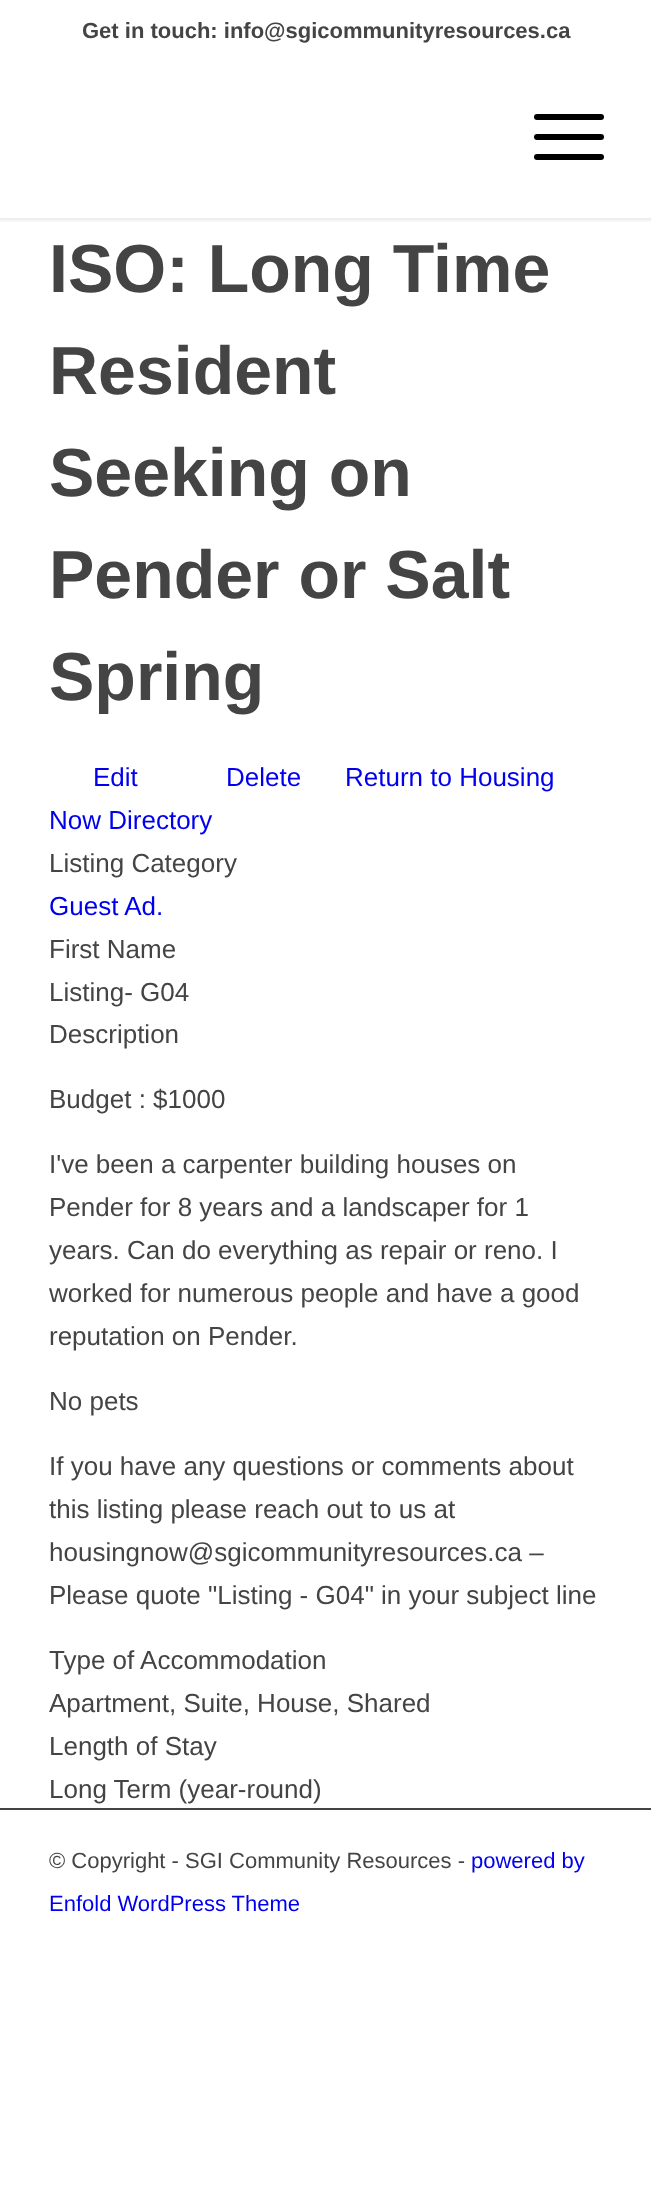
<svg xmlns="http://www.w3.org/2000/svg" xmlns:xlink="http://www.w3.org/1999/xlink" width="651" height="2201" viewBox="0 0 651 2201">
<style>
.cls-1{font:bold 22px Liberation Sans;fill:#444444}
.cls-2{font:bold 68px Liberation Sans;fill:#444444}
.cls-3{font:26px Liberation Sans;fill:#0000ee}
.cls-4{font:26px Liberation Sans;fill:#444444}
.cls-5{font:22px Liberation Sans;fill:#444444}
.cls-6{font:22px Liberation Sans;fill:#0000ee}
</style>
<defs>
<clipPath id="clip1"><rect x="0" y="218" width="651" height="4"/></clipPath>
</defs>
<rect width="100%" height="100%" fill="#ffffff"/>
<g clip-path="url(#clip1)">
<rect fill="#000000" fill-opacity="0.1" filter="blur(2px)" x="-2" y="-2" width="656" height="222"/>
</g>
<rect fill="#000000" x="534" y="134" width="70" height="6" rx="3"/>
<rect fill="#000000" x="534" y="114" width="70" height="6" rx="3"/>
<rect fill="#000000" x="534" y="154" width="70" height="6" rx="3"/>
<rect fill="#444444" x="0" y="1808" width="651" height="2"/>
<text class="cls-1" x="82" y="38">Get in touch: info@sgicommunityresources.ca</text>
<text class="cls-2"><tspan x="49" y="292">ISO: Long Time</tspan><tspan x="49" y="394">Resident</tspan><tspan x="49" y="496">Seeking on</tspan><tspan x="49" y="598">Pender or Salt</tspan><tspan x="49" y="700">Spring</tspan></text>
<text class="cls-3" x="93" y="786">Edit</text>
<text class="cls-3" x="226" y="786">Delete</text>
<text class="cls-3" x="345" y="786">Return to Housing</text>
<text class="cls-3" x="49" y="829">Now Directory</text>
<text class="cls-4" x="49" y="872">Listing Category</text>
<text class="cls-3" x="49" y="915">Guest Ad.</text>
<text class="cls-4"><tspan x="49" y="958">First Name</tspan><tspan x="49" y="1001">Listing- G04</tspan><tspan x="49" y="1043">Description</tspan></text>
<text class="cls-4" x="49" y="1108">Budget : $1000</text>
<text class="cls-4"><tspan x="49" y="1173">I've been a carpenter building houses on</tspan><tspan x="49" y="1216">Pender for 8 years and a landscaper for 1</tspan><tspan x="49" y="1259">years. Can do everything as repair or reno. I</tspan><tspan x="49" y="1302">worked for numerous people and have a good</tspan><tspan x="49" y="1345">reputation on Pender.</tspan></text>
<text class="cls-4" x="49" y="1410">No pets</text>
<text class="cls-4"><tspan x="49" y="1475">If you have any questions or comments about</tspan><tspan x="49" y="1518">this listing please reach out to us at</tspan><tspan x="49" y="1561">housingnow@sgicommunityresources.ca –</tspan><tspan x="49" y="1604">Please quote "Listing - G04" in your subject line</tspan></text>
<text class="cls-4"><tspan x="49" y="1669">Type of Accommodation</tspan><tspan x="49" y="1712">Apartment, Suite, House, Shared</tspan><tspan x="49" y="1755">Length of Stay</tspan><tspan x="49" y="1798">Long Term (year-round)</tspan></text>
<text class="cls-5" x="49" y="1868">© Copyright - SGI Community Resources -</text>
<text class="cls-6" x="471" y="1868">powered by</text>
<text class="cls-6" x="49" y="1911">Enfold WordPress Theme</text>
</svg>
